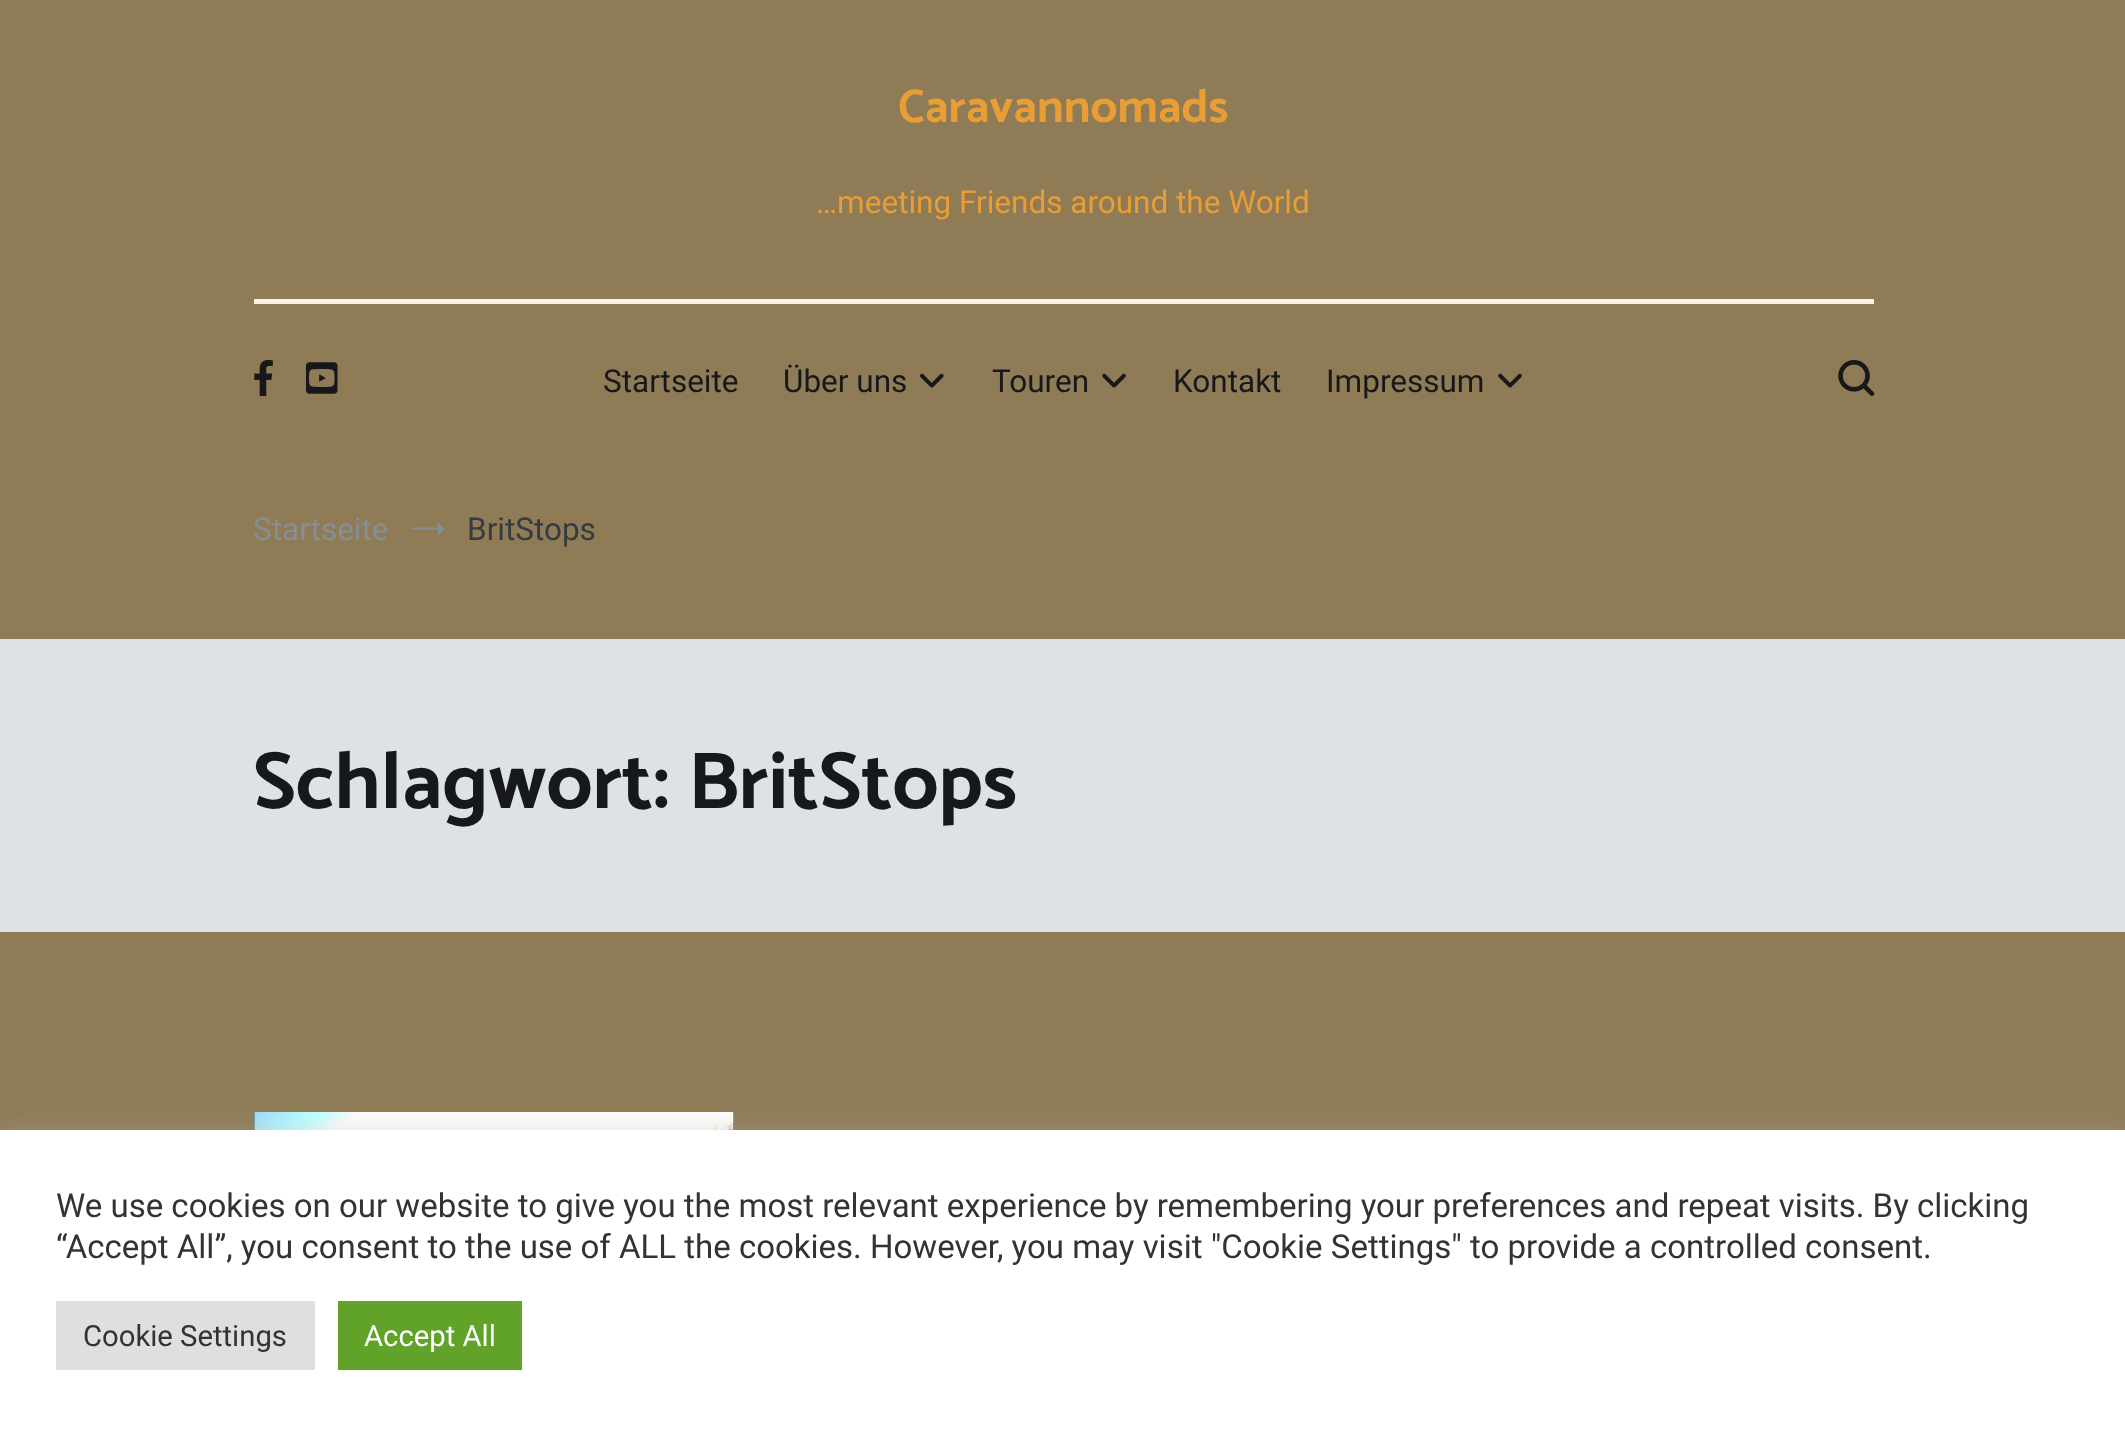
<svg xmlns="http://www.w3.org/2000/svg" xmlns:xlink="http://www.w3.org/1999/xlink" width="2125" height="1436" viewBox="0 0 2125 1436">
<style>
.cls-1{font:bold 47.25px Catamaran;fill:#e89d35}
.cls-2{font:31.5px Roboto;fill:#e89d35}
.cls-3{font:31.5px Roboto;fill:#16181a}
.cls-4{font:31.5px Roboto;fill:#868e96}
.cls-5{font:31.5px Roboto;fill:#363b40}
.cls-6{font:bold 81px Catamaran;fill:#16181a}
.cls-7{font:33px Roboto;fill:#333333}
.cls-8{font:29.25px Roboto;fill:#333333}
.cls-9{font:29.25px Roboto;fill:#ffffff}
</style>
<rect width="100%" height="100%" fill="#8f7c57"/>
<rect fill="#fff0e6" x="254" y="299" width="1620" height="5"/>
<image xlink:href="image0.png" x="254" y="360" width="19" height="36"/>
<image xlink:href="image1.png" x="306" y="362" width="32" height="32"/>
<image xlink:href="image2.png" x="920" y="373" width="24" height="15"/>
<image xlink:href="image3.png" x="1102" y="373" width="24" height="15"/>
<image xlink:href="image3.png" x="1498" y="373" width="24" height="15"/>
<image xlink:href="image4.png" x="1838" y="360" width="37" height="36"/>
<path fill="#868e96" d="M444.5 529L438 535.5V522ZM412 527.5H438V529.5H412Z"/>
<rect fill="#dee2e6" x="0" y="639" width="2125" height="293"/>
<rect fill="#000000" x="254" y="1112" width="480" height="18"/>
<image xlink:href="image5.png" x="254" y="1112" width="480" height="18"/>
<rect fill="#acabab" fill-opacity="0.3" filter="blur(11px)" x="0" y="1127" width="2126" height="309"/>
<rect fill="#ffffff" x="0" y="1130" width="2125" height="306"/>
<rect fill="#dedfe0" x="56" y="1301" width="259" height="69"/>
<rect fill="#61a229" x="338" y="1301" width="184" height="69"/>
<text class="cls-1" x="898" y="122">Caravannomads</text>
<text class="cls-2" x="816" y="213">…meeting Friends around the World</text>
<text class="cls-3" x="603" y="392">Startseite</text>
<text class="cls-3" x="783" y="392">Über uns</text>
<text class="cls-3" x="992" y="392">Touren</text>
<text class="cls-3" x="1173" y="392">Kontakt</text>
<text class="cls-3" x="1326" y="392">Impressum</text>
<text class="cls-4" x="253" y="540">Startseite</text>
<text class="cls-5" x="467" y="540">BritStops</text>
<text class="cls-6" x="253" y="808">Schlagwort: BritStops</text>
<text class="cls-7"><tspan x="56" y="1217">We use cookies on our website to give you the most relevant experience by remembering your preferences and repeat visits. By clicking</tspan><tspan x="56" y="1258">“Accept All”, you consent to the use of ALL the cookies. However, you may visit "Cookie Settings" to provide a controlled consent.</tspan></text>
<text class="cls-8" x="83" y="1346">Cookie Settings</text>
<text class="cls-9" x="364" y="1346">Accept All</text>
</svg>
